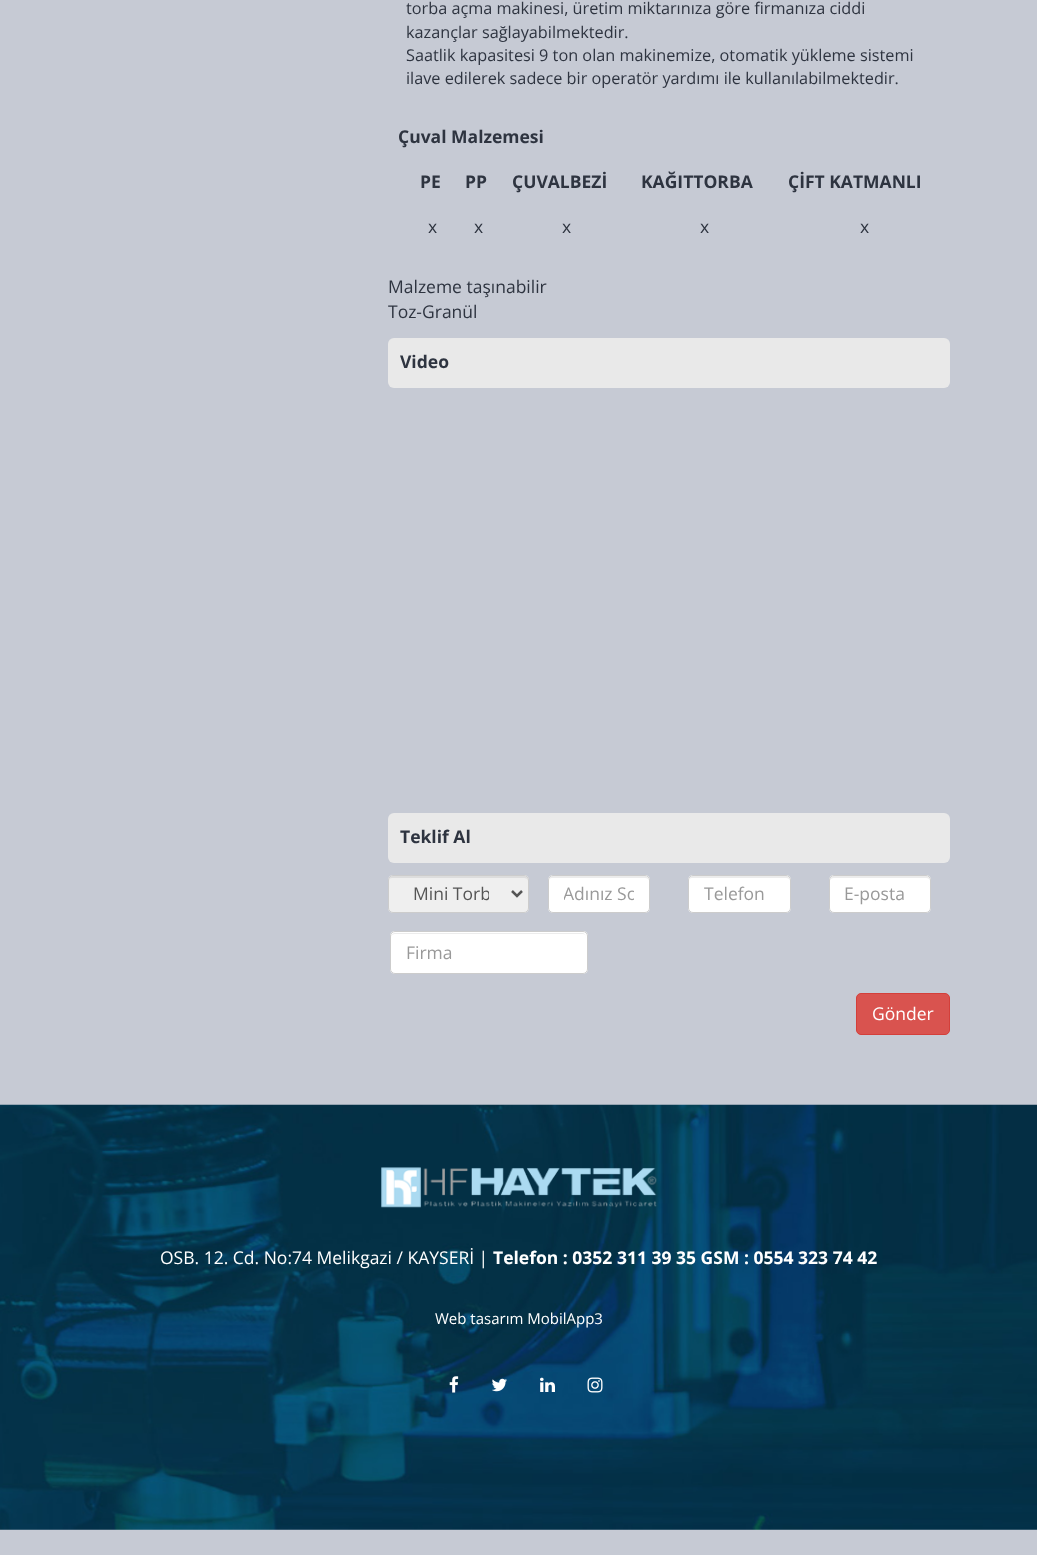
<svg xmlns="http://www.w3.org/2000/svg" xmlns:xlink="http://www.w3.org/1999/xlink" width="1037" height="1555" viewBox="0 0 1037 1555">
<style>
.cls-1{font:16.25px Open Sans;fill:#2e3440}
.cls-2{font:bold 17.5px Open Sans;fill:#2e3440}
.cls-3{font:17.5px Open Sans;fill:#2e3440}
.cls-4{font:17.5px Open Sans;fill:#555555}
.cls-5{font:17.5px Open Sans;fill:#999999}
.cls-6{font:17.5px Open Sans;fill:#ffffff}
.cls-7{font:bold 17.5px Open Sans;fill:#ffffff}
.cls-8{font:15px Open Sans;fill:#ffffff}
</style>
<defs>
<clipPath id="clip1"><rect x="413" y="880" width="76" height="26"/></clipPath>
<clipPath id="clip2"><rect x="564" y="881" width="70" height="24"/></clipPath>
</defs>
<rect width="100%" height="100%" fill="#c6cad4"/>
<rect fill="#e9e9e9" x="388" y="338" width="562" height="50" rx="6"/>
<rect fill="#e9e9e9" x="388" y="813" width="562" height="50" rx="6"/>
<rect fill="#efefef" x="388" y="875" width="141" height="38" rx="5"/>
<path fill="#dddddd" d="M392 878H524C526 878 528 879 528 881V880C528 878 526 876 524 876H393C391 876 389 878 389 880V881C389 879 390 878 392 878Z"/>
<rect fill="none" stroke="#cccccc" x="388.5" y="875.5" width="140" height="37" rx="4.5"/>
<path fill="none" stroke="#555555" stroke-width="2.5" d="M512 891L517 896L522 891"/>
<rect fill="#ffffff" x="548" y="875" width="102" height="38" rx="5"/>
<path fill="#ececec" d="M552 878H645C647 878 649 879 649 881C649 872 634 876 630 876H568C564 876 549 872 549 881C549 879 550 878 552 878Z"/>
<rect fill="none" stroke="#cccccc" x="548.5" y="875.5" width="101" height="37" rx="4.5"/>
<rect fill="#ffffff" x="688" y="875" width="103" height="38" rx="5"/>
<path fill="#ececec" d="M692 878H786C788 878 790 879 790 881C790 872 775 876 770 876H708C704 876 689 872 689 881C689 879 690 878 692 878Z"/>
<rect fill="none" stroke="#cccccc" x="688.5" y="875.5" width="102" height="37" rx="4.5"/>
<rect fill="#ffffff" x="829" y="875" width="102" height="38" rx="5"/>
<path fill="#ececec" d="M834 878H926C928 878 930 879 930 881C930 872 915 876 911 876H849C845 876 830 872 830 881C830 879 832 878 834 878Z"/>
<rect fill="none" stroke="#cccccc" x="829.5" y="875.5" width="101" height="37" rx="4.5"/>
<rect fill="#ffffff" x="390" y="931" width="198" height="43" rx="5"/>
<path fill="#ececec" d="M395 934H582C585 934 586 935 586 938V937C586 935 584 933 582 933H395C393 933 391 935 391 937V938C391 935 393 934 395 934Z"/>
<rect fill="none" stroke="#cccccc" x="390.5" y="931.5" width="197" height="42" rx="4.5"/>
<rect fill="#d9534f" stroke="#d43f3a" x="856.5" y="993.5" width="93" height="41" rx="4.5"/>
<image xlink:href="image0.png" x="0" y="1104" width="1037" height="426"/>
<image xlink:href="image1.png" x="381" y="1167" width="276" height="41"/>
<image xlink:href="image2.png" x="449" y="1376" width="10" height="17"/>
<image xlink:href="image3.png" x="492" y="1378" width="15" height="14"/>
<image xlink:href="image4.png" x="540" y="1377" width="15" height="15"/>
<image xlink:href="image5.png" x="587" y="1377" width="16" height="16"/>
<text class="cls-1"><tspan x="406" y="14">torba açma makinesi, üretim miktarınıza göre firmanıza ciddi</tspan><tspan x="406" y="38">kazançlar sağlayabilmektedir.</tspan><tspan x="406" y="61">Saatlik kapasitesi 9 ton olan makinemize, otomatik yükleme sistemi</tspan><tspan x="406" y="84">ilave edilerek sadece bir operatör yardımı ile kullanılabilmektedir.</tspan></text>
<text class="cls-2" x="398" y="143">Çuval Malzemesi</text>
<text class="cls-2" x="420" y="188">PE</text>
<text class="cls-2" x="465" y="188">PP</text>
<text class="cls-2" x="512" y="188">ÇUVALBEZİ</text>
<text class="cls-2" x="641" y="188">KAĞITTORBA</text>
<text class="cls-2" x="788" y="188">ÇİFT KATMANLI</text>
<text class="cls-3" x="428" y="233">x</text>
<text class="cls-3" x="474" y="233">x</text>
<text class="cls-3" x="562" y="233">x</text>
<text class="cls-3" x="700" y="233">x</text>
<text class="cls-3" x="860" y="233">x</text>
<text class="cls-3"><tspan x="388" y="293">Malzeme taşınabilir</tspan><tspan x="388" y="318">Toz-Granül</tspan></text>
<text class="cls-2" x="400" y="368">Video</text>
<text class="cls-2" x="400" y="843">Teklif Al</text>
<g clip-path="url(#clip1)">
<text class="cls-4" x="413" y="900">Mini Torb</text>
</g>
<g clip-path="url(#clip2)">
<text class="cls-5" x="563" y="900">Adınız So</text>
</g>
<text class="cls-5" x="704" y="900">Telefon</text>
<text class="cls-5" x="844" y="900">E-posta</text>
<text class="cls-5" x="406" y="959">Firma</text>
<text class="cls-6" x="872" y="1020">Gönder</text>
<text class="cls-6" x="160" y="1264">OSB. 12. Cd. No:74 Melikgazi / KAYSERİ |</text>
<text class="cls-7" x="493" y="1264">Telefon : 0352 311 39 35 GSM : 0554 323 74 42</text>
<text class="cls-8" x="435" y="1324">Web tasarım MobilApp3</text>
</svg>
